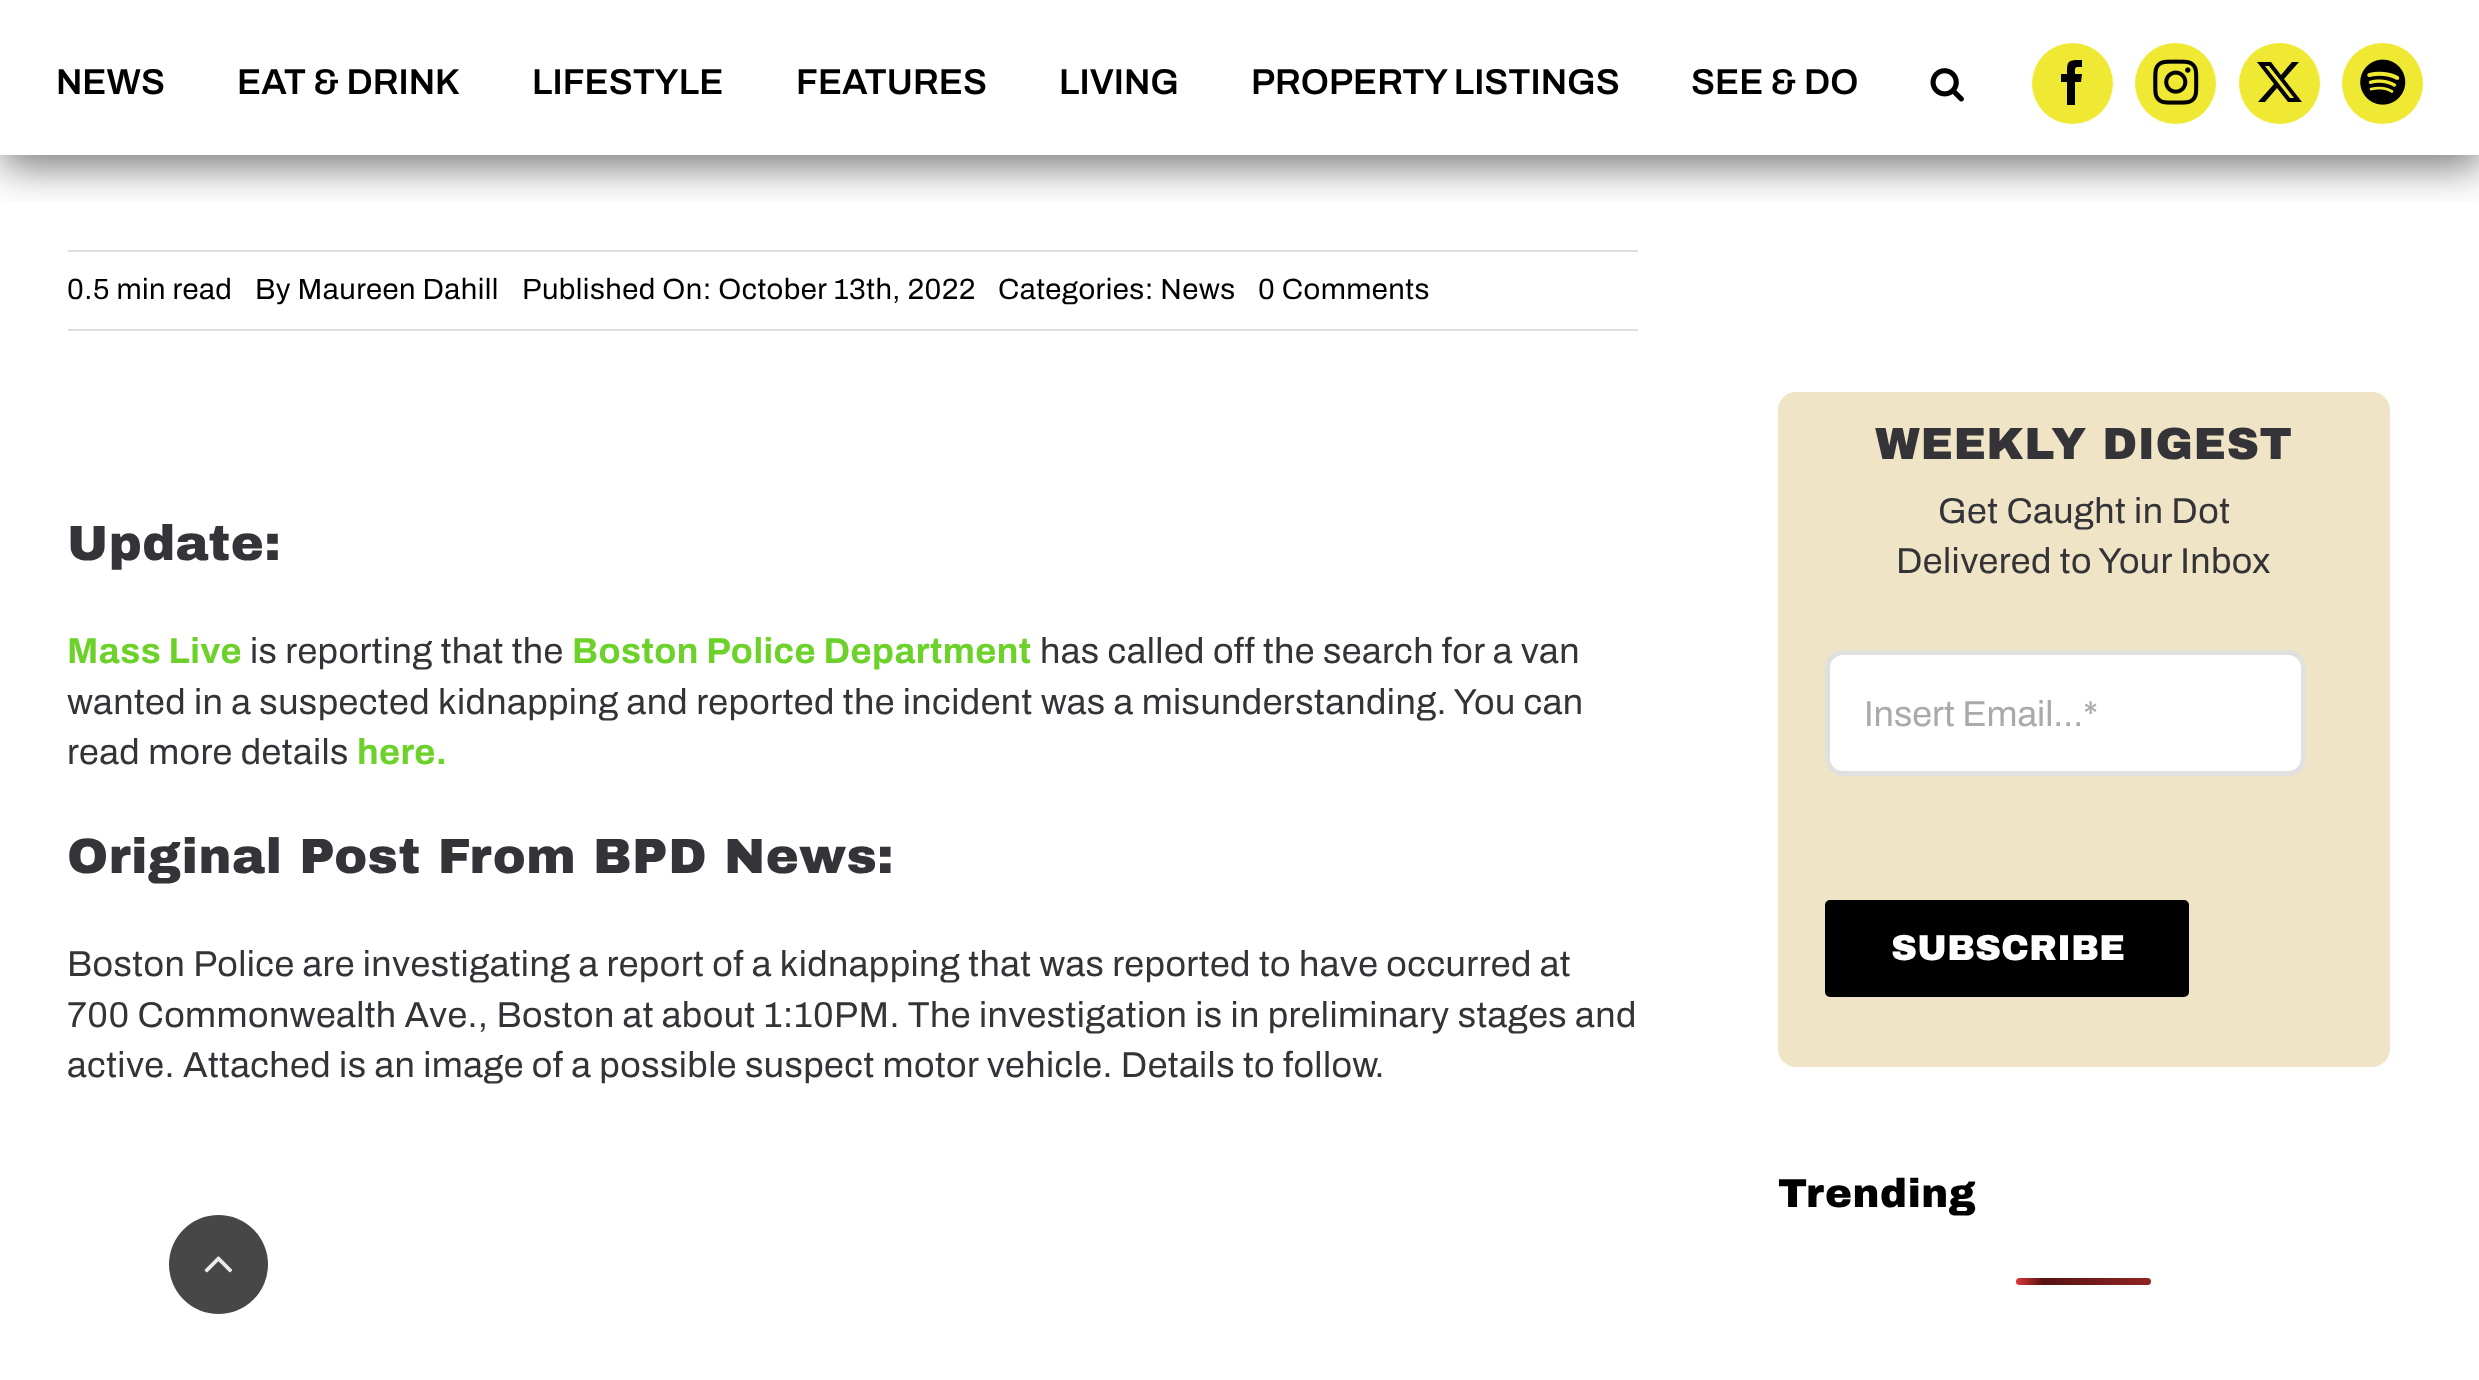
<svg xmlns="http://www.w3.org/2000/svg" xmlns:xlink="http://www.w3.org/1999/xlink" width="2479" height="1380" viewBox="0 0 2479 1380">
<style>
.cls-1{font:600 36px Archivo;fill:#000000}
.cls-2{font:29.25px Archivo;letter-spacing:0.45px;fill:#000000}
.cls-3{font:900 49.5px Archivo Black;letter-spacing:0.45px;fill:#333338}
.cls-4{font:bold 36px Archivo;letter-spacing:0.45px;fill:#6cd229}
.cls-5{font:36px Archivo;letter-spacing:0.45px;fill:#333338}
.cls-6{font:900 45px Archivo Black;letter-spacing:0.45px;fill:#333338}
.cls-7{font:36px Archivo;fill:#aaaaaa}
.cls-8{font:900 36px Archivo Black;fill:#ffffff}
.cls-9{font:900 40.5px Archivo Black;letter-spacing:0.45px;fill:#000000}
</style>
<defs>
<clipPath id="clip1"><rect x="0" y="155" width="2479" height="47"/></clipPath>
<linearGradient id="g1" gradientUnits="userSpaceOnUse" x1="2016" y1="1281" x2="2286" y2="1281"><stop offset="0" stop-color="#dd3737"/><stop offset="0.1" stop-color="#571313"/><stop offset="1" stop-color="#dd3737"/></linearGradient>
</defs>
<rect width="100%" height="100%" fill="#ffffff"/>
<g clip-path="url(#clip1)">
<rect fill="#000000" fill-opacity="0.52" filter="blur(20px)" x="2" y="11" width="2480" height="156"/>
</g>
<image xlink:href="image0.png" x="1930" y="68" width="34" height="34"/>
<circle fill="#f0e934" cx="2072.5" cy="83.5" r="40.5"/>
<path fill="#000000" d="M2075 105H2067V82H2061V74H2067C2067 60 2068 60 2082 60V67C2074 67 2075 67 2075 74H2082L2081 82H2075Z"/>
<circle fill="#f0e934" cx="2175.5" cy="83.5" r="40.5"/>
<image xlink:href="image1.png" x="2153" y="59" width="46" height="46"/>
<circle fill="#f0e934" cx="2279.5" cy="83.5" r="40.5"/>
<path fill="#000000" d="M2292 62H2299L2284 79L2302 102H2288L2277 88L2265 102H2258L2274 84L2257 62H2271L2281 75ZM2290 98H2294L2269 66H2265Z"/>
<circle fill="#f0e934" cx="2382.5" cy="83.5" r="40.5"/>
<image xlink:href="image2.png" x="2360" y="59" width="46" height="46"/>
<rect fill="#e0dede" x="68" y="250" width="1570" height="2"/>
<rect fill="#e0dede" x="68" y="329" width="1570" height="2"/>
<rect fill="#f0e4c6" x="1778" y="392" width="612" height="675" rx="18"/>
<rect fill="#ffffff" stroke="#e0e0de" stroke-width="5" x="1827.5" y="652.5" width="476" height="121" rx="15.5"/>
<rect fill="#000000" x="1825" y="900" width="364" height="97" rx="5"/>
<rect fill="url(#g1)" x="2016" y="1278" width="135" height="7" rx="3.5"/>
<circle fill="#474747" cx="218.5" cy="1264.5" r="49.5"/>
<image xlink:href="image3.png" x="204" y="1256" width="29" height="17"/>
<text class="cls-1" x="56" y="94">NEWS</text>
<text class="cls-1" x="237" y="94">EAT &amp; DRINK</text>
<text class="cls-1" x="532" y="94">LIFESTYLE</text>
<text class="cls-1" x="796" y="94">FEATURES</text>
<text class="cls-1" x="1059" y="94">LIVING</text>
<text class="cls-1" x="1251" y="94">PROPERTY LISTINGS</text>
<text class="cls-1" x="1691" y="94">SEE &amp; DO</text>
<text class="cls-2" x="67" y="299">0.5 min read</text>
<text class="cls-2" x="255" y="299">By Maureen Dahill</text>
<text class="cls-2" x="522" y="299">Published On: October 13th, 2022</text>
<text class="cls-2" x="998" y="299">Categories: News</text>
<text class="cls-2" x="1258" y="299">0 Comments</text>
<text class="cls-3" x="67" y="560">Update:</text>
<text class="cls-4" x="67" y="663">Mass Live</text>
<text class="cls-5" x="250" y="663">is reporting that the</text>
<text class="cls-4" x="572" y="663">Boston Police Department</text>
<text class="cls-5" x="1040" y="663">has called off the search for a van</text>
<text class="cls-5"><tspan x="67" y="714">wanted in a suspected kidnapping and reported the incident was a misunderstanding. You can</tspan><tspan x="67" y="764">read more details</tspan></text>
<text class="cls-4" x="357" y="764">here.</text>
<text class="cls-3" x="67" y="873">Original Post From BPD News:</text>
<text class="cls-5"><tspan x="67" y="976">Boston Police are investigating a report of a kidnapping that was reported to have occurred at</tspan><tspan x="67" y="1027">700 Commonwealth Ave., Boston at about 1:10PM. The investigation is in preliminary stages and</tspan><tspan x="67" y="1077">active. Attached is an image of a possible suspect motor vehicle. Details to follow.</tspan></text>
<text class="cls-6" x="1875" y="459">WEEKLY DIGEST</text>
<text class="cls-5" x="1938" y="523">Get Caught in Dot</text>
<text class="cls-5" x="1896" y="573">Delivered to Your Inbox</text>
<text class="cls-7" x="1864" y="726">Insert Email...*</text>
<text class="cls-8" x="1891" y="960">SUBSCRIBE</text>
<text class="cls-9" x="1778" y="1207">Trending</text>
</svg>
